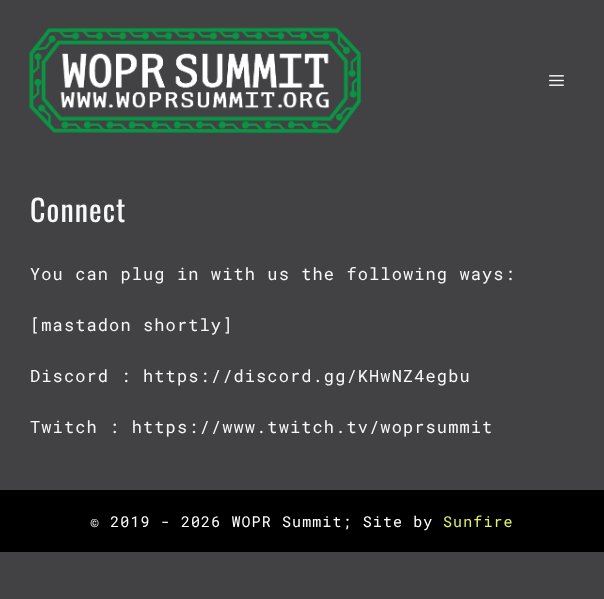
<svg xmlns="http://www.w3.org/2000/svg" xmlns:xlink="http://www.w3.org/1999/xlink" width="604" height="599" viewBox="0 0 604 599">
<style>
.cls-1{font:30px Oswald;letter-spacing:1.1px;fill:#f7f8f9}
.cls-2{font:17px Roboto Mono;letter-spacing:1.1px;fill:#f7f8f9}
.cls-3{font:15px Roboto Mono;letter-spacing:1.1px;fill:#ffffff}
.cls-4{font:15px Roboto Mono;letter-spacing:1.1px;fill:#e2f062}
</style>
<rect width="100%" height="100%" fill="#424244"/>
<image xlink:href="image0.png" x="29" y="27" width="333" height="107"/>
<image xlink:href="image1.png" x="549" y="75" width="15" height="11"/>
<rect fill="#000000" x="0" y="490" width="604" height="62"/>
<text class="cls-1" x="30" y="222">Connect</text>
<text class="cls-2" x="30" y="280">You can plug in with us the following ways:</text>
<text class="cls-2" x="30" y="331">[mastadon shortly]</text>
<text class="cls-2" x="30" y="382">Discord : https://discord.gg/KHwNZ4egbu</text>
<text class="cls-2" x="30" y="433">Twitch : https://www.twitch.tv/woprsummit</text>
<text class="cls-3" x="90" y="527">© 2019 - 2026 WOPR Summit; Site by</text>
<text class="cls-4" x="443" y="527">Sunfire</text>
</svg>
